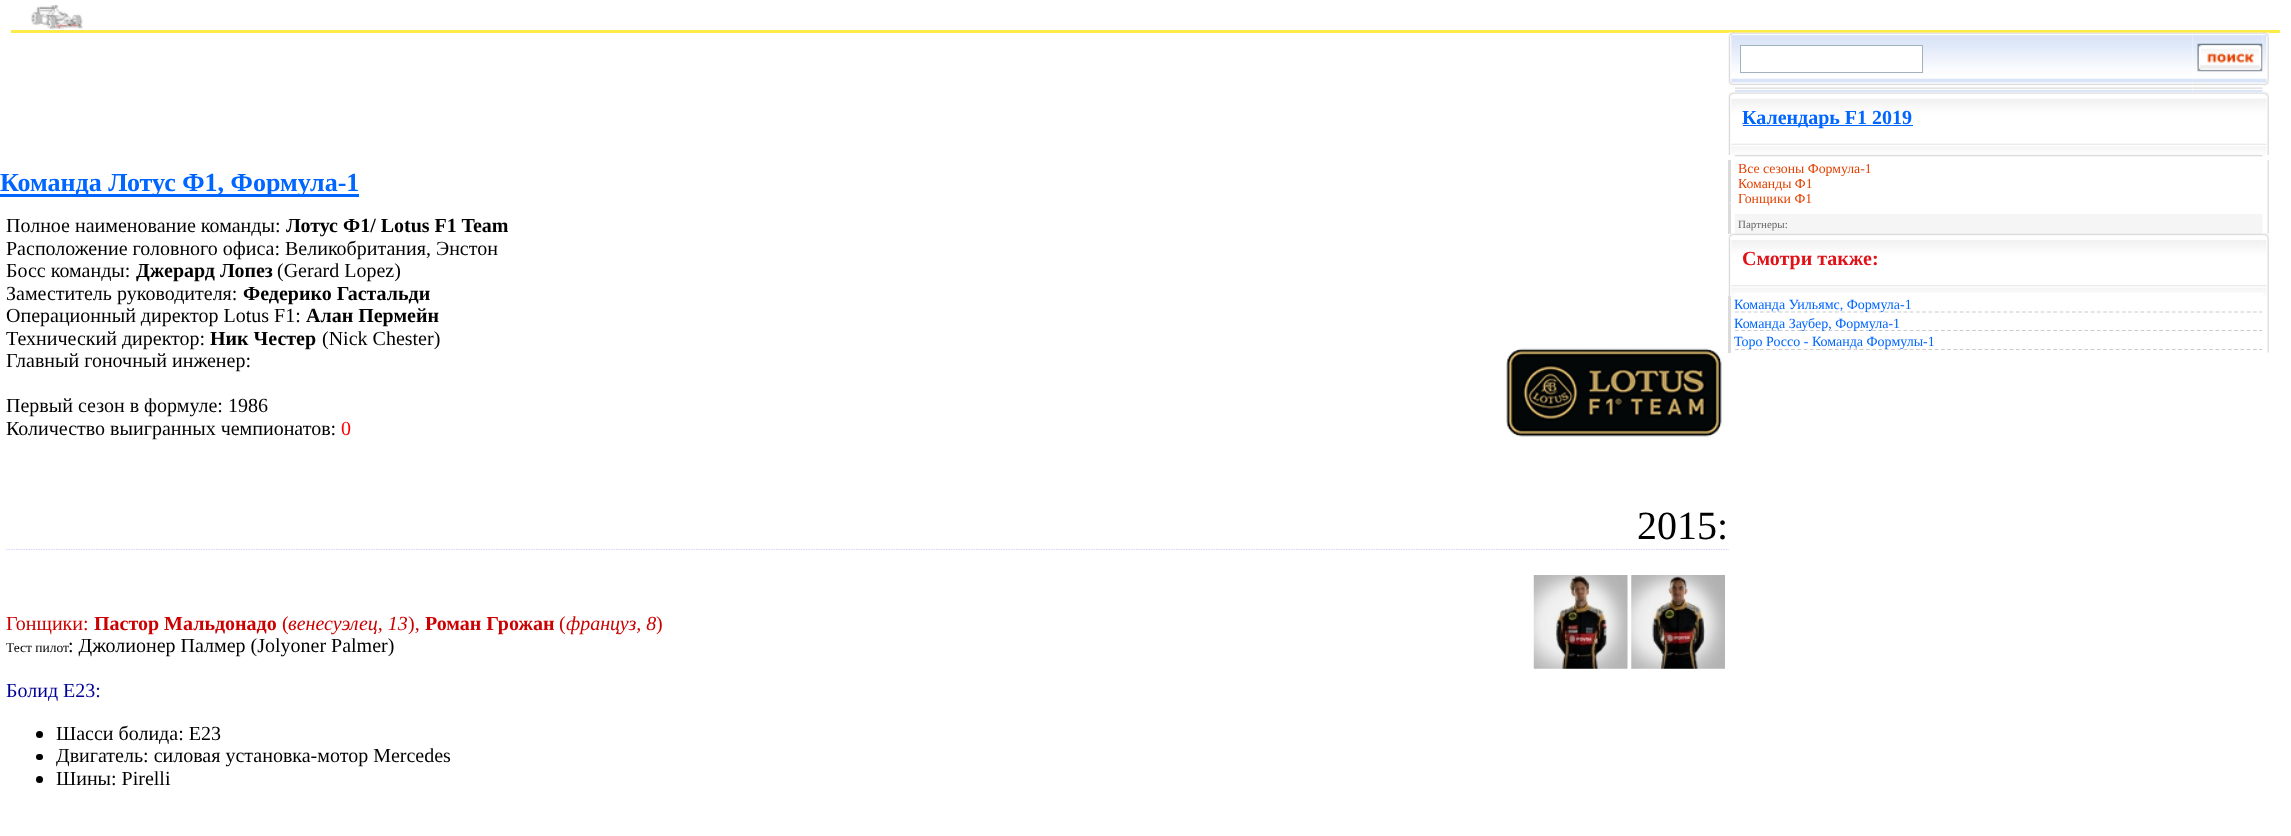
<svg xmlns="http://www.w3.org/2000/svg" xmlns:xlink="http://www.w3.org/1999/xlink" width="2291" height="836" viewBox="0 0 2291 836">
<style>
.cls-1{font:bold 26px Liberation Serif;fill:#0066ff}
.cls-2{font:20px Liberation Serif;fill:#000000}
.cls-3{font:bold 20px Liberation Serif;fill:#000000}
.cls-4{font:20px Liberation Serif;fill:#ff0000}
.cls-5{font:40px Liberation Serif;fill:#000000}
.cls-6{font:20px Liberation Serif;fill:#cc0000}
.cls-7{font:bold 20px Liberation Serif;fill:#cc0000}
.cls-8{font:italic 20px Liberation Serif;fill:#cc0000}
.cls-9{font:13.5px Liberation Serif;fill:#000000}
.cls-10{font:20px Liberation Serif;fill:#000099}
.cls-11{font:bold 20px Liberation Serif;fill:#0066ff}
.cls-12{font:13.75px Liberation Serif;fill:#e34000}
.cls-13{font:11px Liberation Serif;fill:#666666}
.cls-14{font:bold 20px Liberation Serif;fill:#e01117}
.cls-15{font:14px Liberation Serif;fill:#0066ff}
</style>
<rect width="100%" height="100%" fill="#ffffff"/>
<image xlink:href="image0.png" x="31" y="5" width="52" height="24"/>
<rect fill="#ffeb45" x="11" y="30" width="2269" height="3"/>
<rect fill="#0066ff" x="0" y="194" width="359" height="3"/>
<image xlink:href="image1.png" x="1506" y="348" width="216" height="89"/>
<path fill="none" stroke="#ccccff" stroke-width="1.2" stroke-dasharray="1.25 1.25" d="M6 549.5H1729"/>
<image xlink:href="image2.png" x="1533" y="575" width="95" height="94"/>
<image xlink:href="image3.png" x="1631" y="575" width="94" height="94"/>
<circle fill="#000000" cx="39.5" cy="734.5" r="3.5"/>
<rect fill="#000000" x="36" y="754" width="7" height="6" rx="3"/>
<circle fill="#000000" cx="39.5" cy="779.5" r="3.5"/>
<image xlink:href="image4.png" x="1728" y="32" width="7" height="54"/>
<image xlink:href="image5.png" x="1735" y="32" width="458" height="61"/>
<rect fill="#ffffff" stroke="#a1b1be" x="1740.5" y="45.5" width="182" height="27"/>
<image xlink:href="image6.png" x="2192" y="32" width="71" height="61"/>
<image xlink:href="image7.png" x="2197" y="43" width="66" height="29"/>
<image xlink:href="image8.png" x="2262" y="32" width="7" height="54"/>
<image xlink:href="image9.png" x="1728" y="92" width="7" height="63"/>
<image xlink:href="image10.png" x="1735" y="92" width="528" height="65"/>
<rect fill="#0066ff" x="1743" y="125" width="170" height="1"/>
<image xlink:href="image11.png" x="2262" y="92" width="7" height="63"/>
<rect fill="#dbdbdb" x="1728" y="160" width="3" height="74"/>
<image xlink:href="image12.png" x="1730" y="202" width="1" height="2"/>
<rect fill="#f5f5f5" x="1735" y="214" width="528" height="20"/>
<image xlink:href="image13.png" x="2262" y="160" width="7" height="74"/>
<rect fill="#dcdcdc" x="2268" y="203" width="1" height="1"/>
<image xlink:href="image14.png" x="1728" y="233" width="7" height="64"/>
<image xlink:href="image15.png" x="1735" y="233" width="528" height="60"/>
<image xlink:href="image16.png" x="2262" y="233" width="7" height="64"/>
<rect fill="#dbdbdb" x="1728" y="296" width="3" height="57"/>
<path fill="none" stroke="#cccccc" stroke-width="1.2" stroke-dasharray="3.75 2.49" d="M1735 312H2262.5"/>
<path fill="none" stroke="#cccccc" stroke-width="1.2" stroke-dasharray="3.75 2.49" d="M1735 330.5H2262.5"/>
<path fill="none" stroke="#cccccc" stroke-width="1.2" stroke-dasharray="3.75 2.49" d="M1735 349.5H2262.5"/>
<image xlink:href="image17.png" x="2262" y="296" width="7" height="57"/>
<text class="cls-1" x="0" y="191">Команда Лотус Ф1, Формула-1</text>
<text class="cls-2" x="6" y="232">Полное наименование команды:</text>
<text class="cls-3" x="286" y="232">Лотус Ф1/ Lotus F1 Team</text>
<text class="cls-2"><tspan x="6" y="255">Расположение головного офиса: Великобритания, Энстон</tspan><tspan x="6" y="277">Босс команды:</tspan></text>
<text class="cls-3" x="136" y="277">Джерард Лопез</text>
<text class="cls-2" x="277" y="277">(Gerard Lopez)</text>
<text class="cls-2" x="6" y="300">Заместитель руководителя:</text>
<text class="cls-3" x="243" y="300">Федерико Гастальди</text>
<text class="cls-2" x="6" y="322">Операционный директор Lotus F1:</text>
<text class="cls-3" x="306" y="322">Алан Пермейн</text>
<text class="cls-2" x="6" y="345">Технический директор:</text>
<text class="cls-3" x="210" y="345">Ник Честер</text>
<text class="cls-2" x="322" y="345">(Nick Chester)</text>
<text class="cls-2" x="6" y="367">Главный гоночный инженер:</text>
<text class="cls-2"><tspan x="6" y="412">Первый сезон в формуле: 1986</tspan><tspan x="6" y="435">Количество выигранных чемпионатов:</tspan></text>
<text class="cls-4" x="341" y="435">0</text>
<text class="cls-5" x="1637" y="539">2015:</text>
<text class="cls-6" x="6" y="630">Гонщики:</text>
<text class="cls-7" x="94" y="630">Пастор Мальдонадо</text>
<text class="cls-6" x="282" y="630">(</text>
<text class="cls-8" x="288" y="630">венесуэлец, 13</text>
<text class="cls-6" x="408" y="630">),</text>
<text class="cls-7" x="425" y="630">Роман Грожан</text>
<text class="cls-6" x="559" y="630">(</text>
<text class="cls-8" x="566" y="630">француз, 8</text>
<text class="cls-6" x="656" y="630">)</text>
<text class="cls-9" x="6" y="652">Тест пилот</text>
<text class="cls-2" x="68" y="652">: Джолионер Палмер (Jolyoner Palmer)</text>
<text class="cls-10" x="6" y="697">Болид Е23:</text>
<text class="cls-2"><tspan x="56" y="740">Шасси болида: E23</tspan><tspan x="56" y="762">Двигатель: силовая установка-мотор Mercedes</tspan><tspan x="56" y="785">Шины: Pirelli</tspan></text>
<text class="cls-11" x="1742" y="124">Календарь F1 2019</text>
<text class="cls-12"><tspan x="1738" y="173">Все сезоны Формула-1</tspan><tspan x="1738" y="188">Команды Ф1</tspan><tspan x="1738" y="203">Гонщики Ф1</tspan></text>
<text class="cls-13" x="1738" y="228">Партнеры:</text>
<text class="cls-14" x="1742" y="265">Смотри также:</text>
<text class="cls-15"><tspan x="1734" y="309">Команда Уильямс, Формула-1</tspan><tspan x="1734" y="328">Команда Заубер, Формула-1</tspan><tspan x="1734" y="346">Торо Россо - Команда Формулы-1</tspan></text>
</svg>
